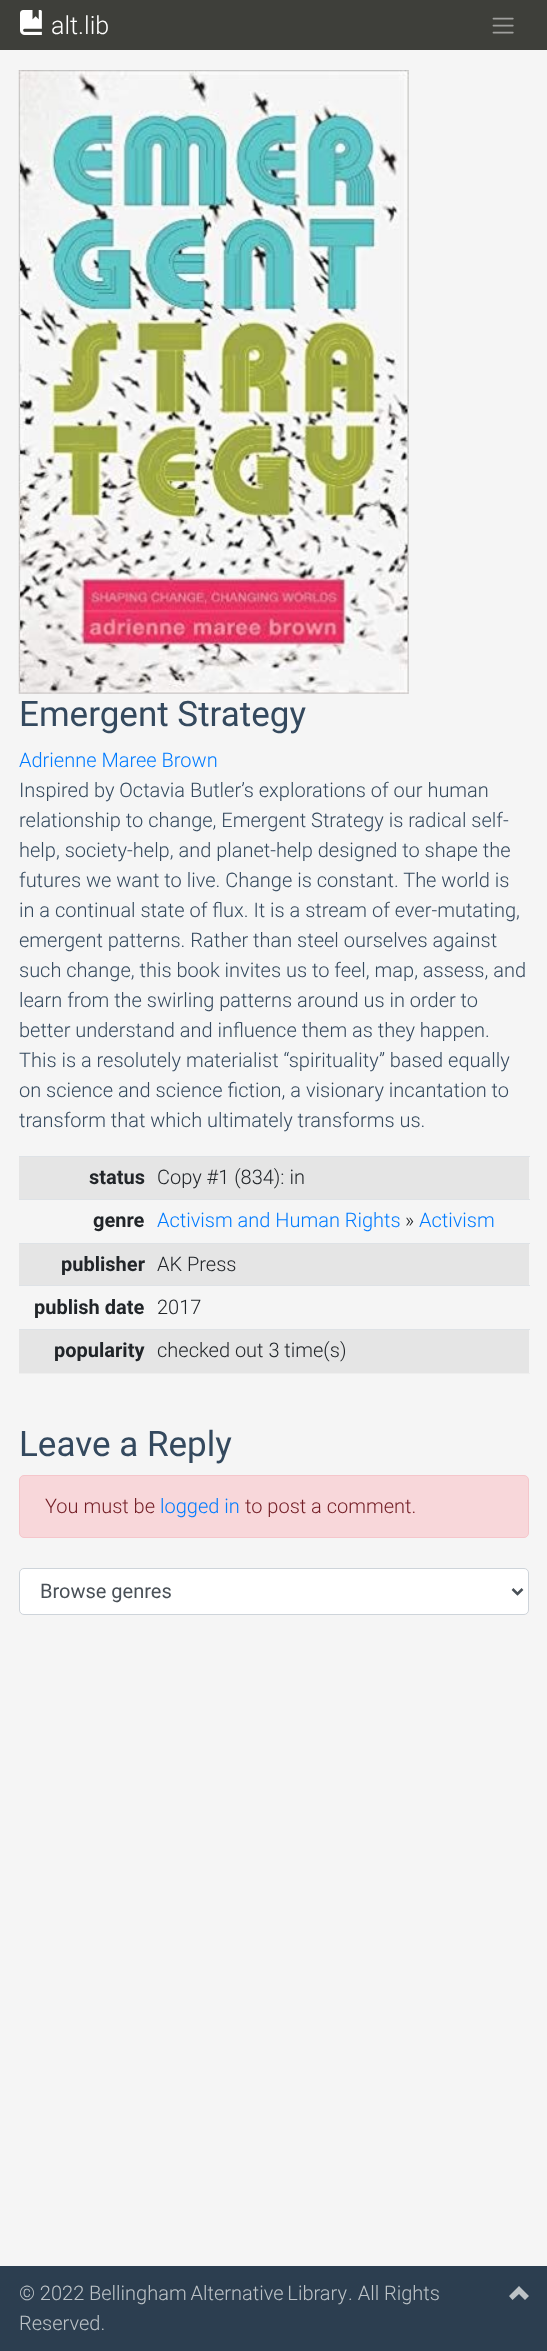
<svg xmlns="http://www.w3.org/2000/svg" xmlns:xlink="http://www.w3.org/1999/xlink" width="547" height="2351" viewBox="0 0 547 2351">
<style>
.cls-1{font:300 25px Roboto;fill:#ffffff}
.cls-2{font:35px Roboto;fill:#34495e}
.cls-3{font:300 20px Roboto;fill:#007bff}
.cls-4{font:300 20px Roboto;fill:#34495e}
.cls-5{font:bold 20px Roboto;fill:#212529}
.cls-6{font:300 20px Roboto;fill:#212529}
.cls-7{font:300 20px Roboto;fill:#721c24}
.cls-8{font:20px Roboto;fill:#495057}
.cls-9{font:300 20px Roboto;fill:#bdc3c7}
</style>
<rect width="100%" height="100%" fill="#f5f5f5"/>
<rect fill="#3e3f3a" x="0" y="0" width="547" height="50"/>
<image xlink:href="image0.png" x="20" y="10" width="22" height="25"/>
<image xlink:href="image1.png" x="492" y="17" width="22" height="17"/>
<image xlink:href="image2.png" x="18" y="70" width="391" height="624"/>
<rect fill="#e5e5e5" x="19" y="1157" width="510" height="42"/>
<rect fill="#dee2e6" x="19" y="1156" width="511" height="1"/>
<rect fill="#dee2e6" x="19" y="1199" width="511" height="1"/>
<rect fill="#e5e5e5" x="19" y="1244" width="510" height="41"/>
<rect fill="#dee2e6" x="19" y="1243" width="511" height="1"/>
<rect fill="#dee2e6" x="19" y="1285" width="511" height="1"/>
<rect fill="#e5e5e5" x="19" y="1330" width="510" height="43"/>
<rect fill="#eeeeee" x="19" y="1373" width="511" height="1"/>
<rect fill="#dee2e6" x="19" y="1329" width="511" height="1"/>
<rect fill="#f8d7da" stroke="#f5c6cb" x="19.5" y="1475.5" width="509" height="62" rx="4.5"/>
<rect fill="#ffffff" stroke="#ced4da" x="19.5" y="1568.5" width="509" height="46" rx="4.5"/>
<path fill="none" stroke="#495057" stroke-width="2.5" d="M512.5 1589L517.5 1594L522.5 1589"/>
<rect fill="#2c3e50" x="0" y="2266" width="547" height="85"/>
<path fill="#bdc3c7" d="M519 2286L529 2296L525 2300L519 2294L512.5 2300L509 2296Z"/>
<text class="cls-1" x="51" y="34">alt.lib</text>
<text class="cls-2" x="19" y="726">Emergent Strategy</text>
<text class="cls-3" x="19" y="767">Adrienne Maree Brown</text>
<text class="cls-4"><tspan x="19" y="797">Inspired by Octavia Butler’s explorations of our human</tspan><tspan x="19" y="827">relationship to change, Emergent Strategy is radical self-</tspan><tspan x="19" y="857">help, society-help, and planet-help designed to shape the</tspan><tspan x="19" y="887">futures we want to live. Change is constant. The world is</tspan><tspan x="19" y="917">in a continual state of flux. It is a stream of ever-mutating,</tspan><tspan x="19" y="947">emergent patterns. Rather than steel ourselves against</tspan><tspan x="19" y="977">such change, this book invites us to feel, map, assess, and</tspan><tspan x="19" y="1007">learn from the swirling patterns around us in order to</tspan><tspan x="19" y="1037">better understand and influence them as they happen.</tspan><tspan x="19" y="1067">This is a resolutely materialist “spirituality” based equally</tspan><tspan x="19" y="1097">on science and science fiction, a visionary incantation to</tspan><tspan x="19" y="1127">transform that which ultimately transforms us.</tspan></text>
<text class="cls-5" x="89" y="1184">status</text>
<text class="cls-6" x="157" y="1184">Copy #1 (834): in</text>
<text class="cls-5" x="93" y="1227">genre</text>
<text class="cls-3" x="157" y="1227">Activism and Human Rights</text>
<text class="cls-6" x="405" y="1227">»</text>
<text class="cls-3" x="419" y="1227">Activism</text>
<text class="cls-5" x="61" y="1271">publisher</text>
<text class="cls-6" x="157" y="1271">AK Press</text>
<text class="cls-5" x="34" y="1314">publish date</text>
<text class="cls-6" x="157" y="1314">2017</text>
<text class="cls-5" x="54" y="1357">popularity</text>
<text class="cls-6" x="157" y="1357">checked out 3 time(s)</text>
<text class="cls-2" x="19" y="1456">Leave a Reply</text>
<text class="cls-7" x="45" y="1513">You must be</text>
<text class="cls-3" x="160" y="1513">logged in</text>
<text class="cls-7" x="245" y="1513">to post a comment.</text>
<text class="cls-8" x="40" y="1598">Browse genres</text>
<text class="cls-9" x="19" y="2300">© 2022</text>
<text class="cls-9" x="89" y="2300" word-spacing="-1">Bellingham Alternative Library</text>
<text class="cls-9" x="348" y="2300">. All Rights</text>
<text class="cls-9" x="19" y="2330">Reserved.</text>
</svg>
